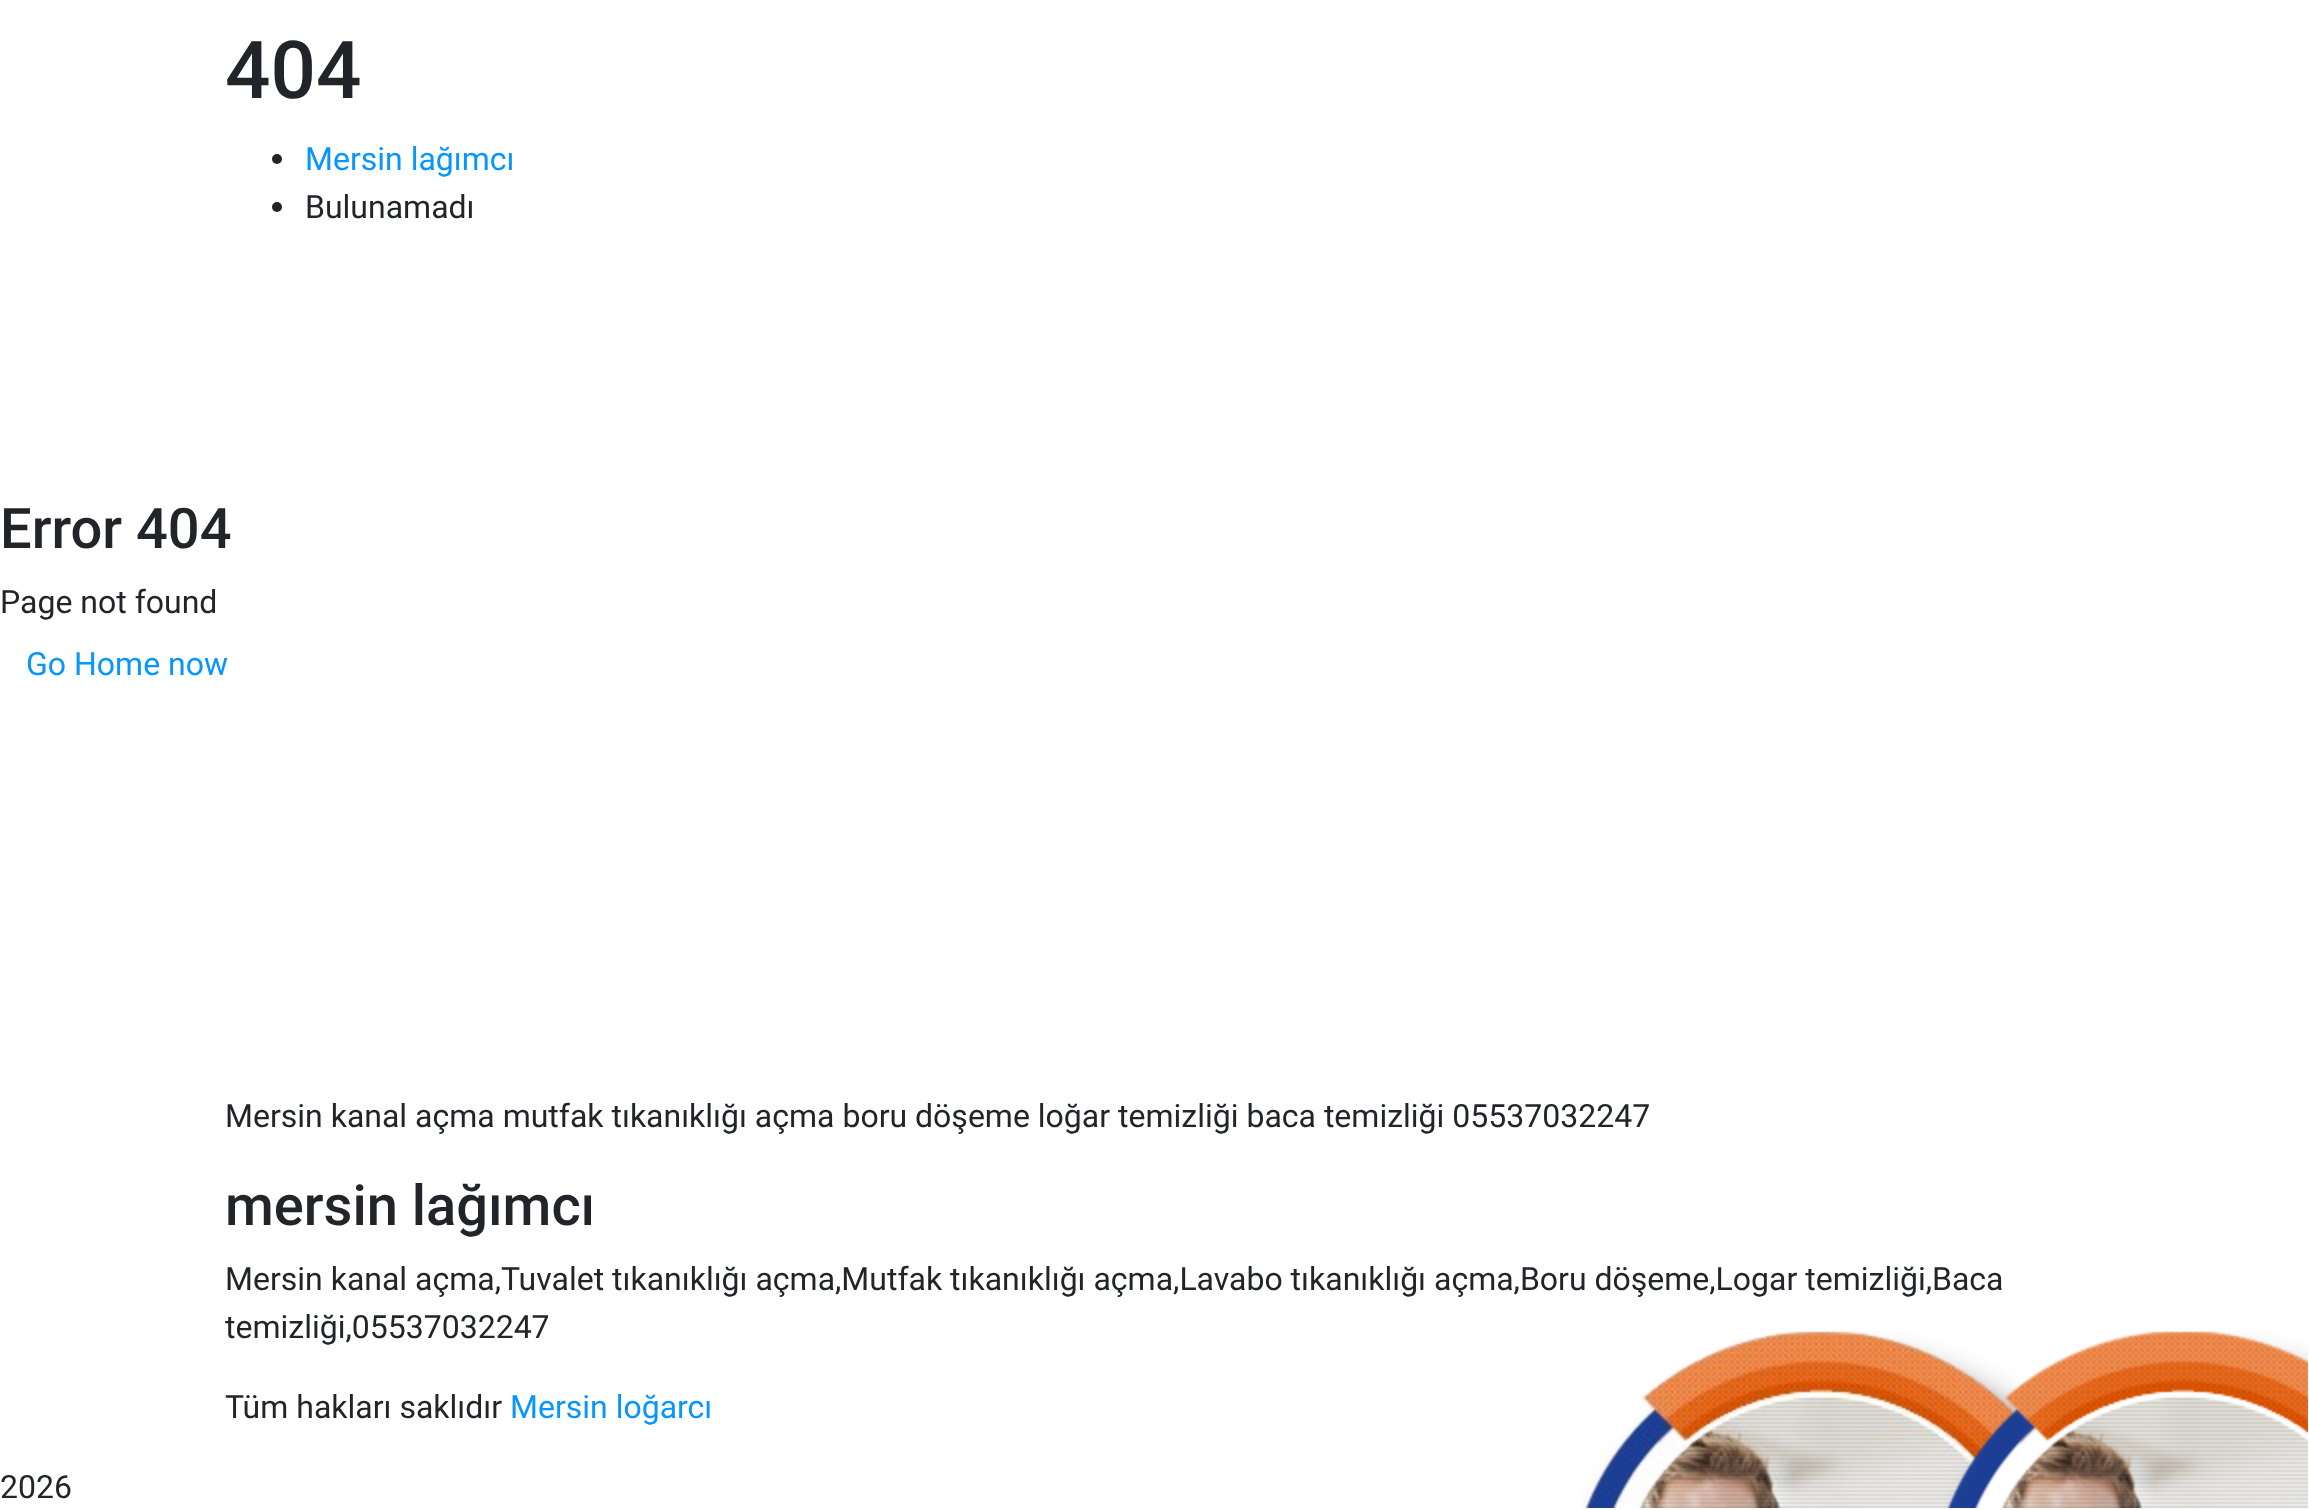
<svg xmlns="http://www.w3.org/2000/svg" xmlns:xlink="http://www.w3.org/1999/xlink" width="2309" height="1510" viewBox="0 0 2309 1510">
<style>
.cls-1{font:500 80px Roboto;fill:#212529}
.cls-2{font:32px Roboto;fill:#0795fe}
.cls-3{font:32px Roboto;fill:#212529}
.cls-4{font:500 56px Roboto;fill:#212529}
</style>
<rect width="100%" height="100%" fill="#ffffff"/>
<circle fill="#212529" cx="277" cy="159" r="5"/>
<circle fill="#212529" cx="277" cy="207" r="5"/>
<image xlink:href="image0.png" x="1582" y="1331" width="439" height="177"/>
<image xlink:href="image1.png" x="1944" y="1331" width="364" height="177"/>
<text class="cls-1" x="225" y="98">404</text>
<text class="cls-2" x="305" y="170">Mersin lağımcı</text>
<text class="cls-3" x="305" y="218">Bulunamadı</text>
<text class="cls-4" x="0" y="548">Error 404</text>
<text class="cls-3" x="0" y="613">Page not found</text>
<text class="cls-2" x="26" y="675">Go Home now</text>
<text class="cls-3" x="225" y="1127">Mersin kanal açma mutfak tıkanıklığı açma boru döşeme loğar temizliği baca temizliği 05537032247</text>
<text class="cls-4" x="225" y="1225">mersin lağımcı</text>
<text class="cls-3"><tspan x="225" y="1290">Mersin kanal açma,Tuvalet tıkanıklığı açma,Mutfak tıkanıklığı açma,Lavabo tıkanıklığı açma,Boru döşeme,Logar temizliği,Baca</tspan><tspan x="225" y="1338">temizliği,05537032247</tspan></text>
<text class="cls-3" x="225" y="1418">Tüm hakları saklıdır</text>
<text class="cls-2" x="510" y="1418">Mersin loğarcı</text>
<text class="cls-3" x="0" y="1498">2026</text>
</svg>
